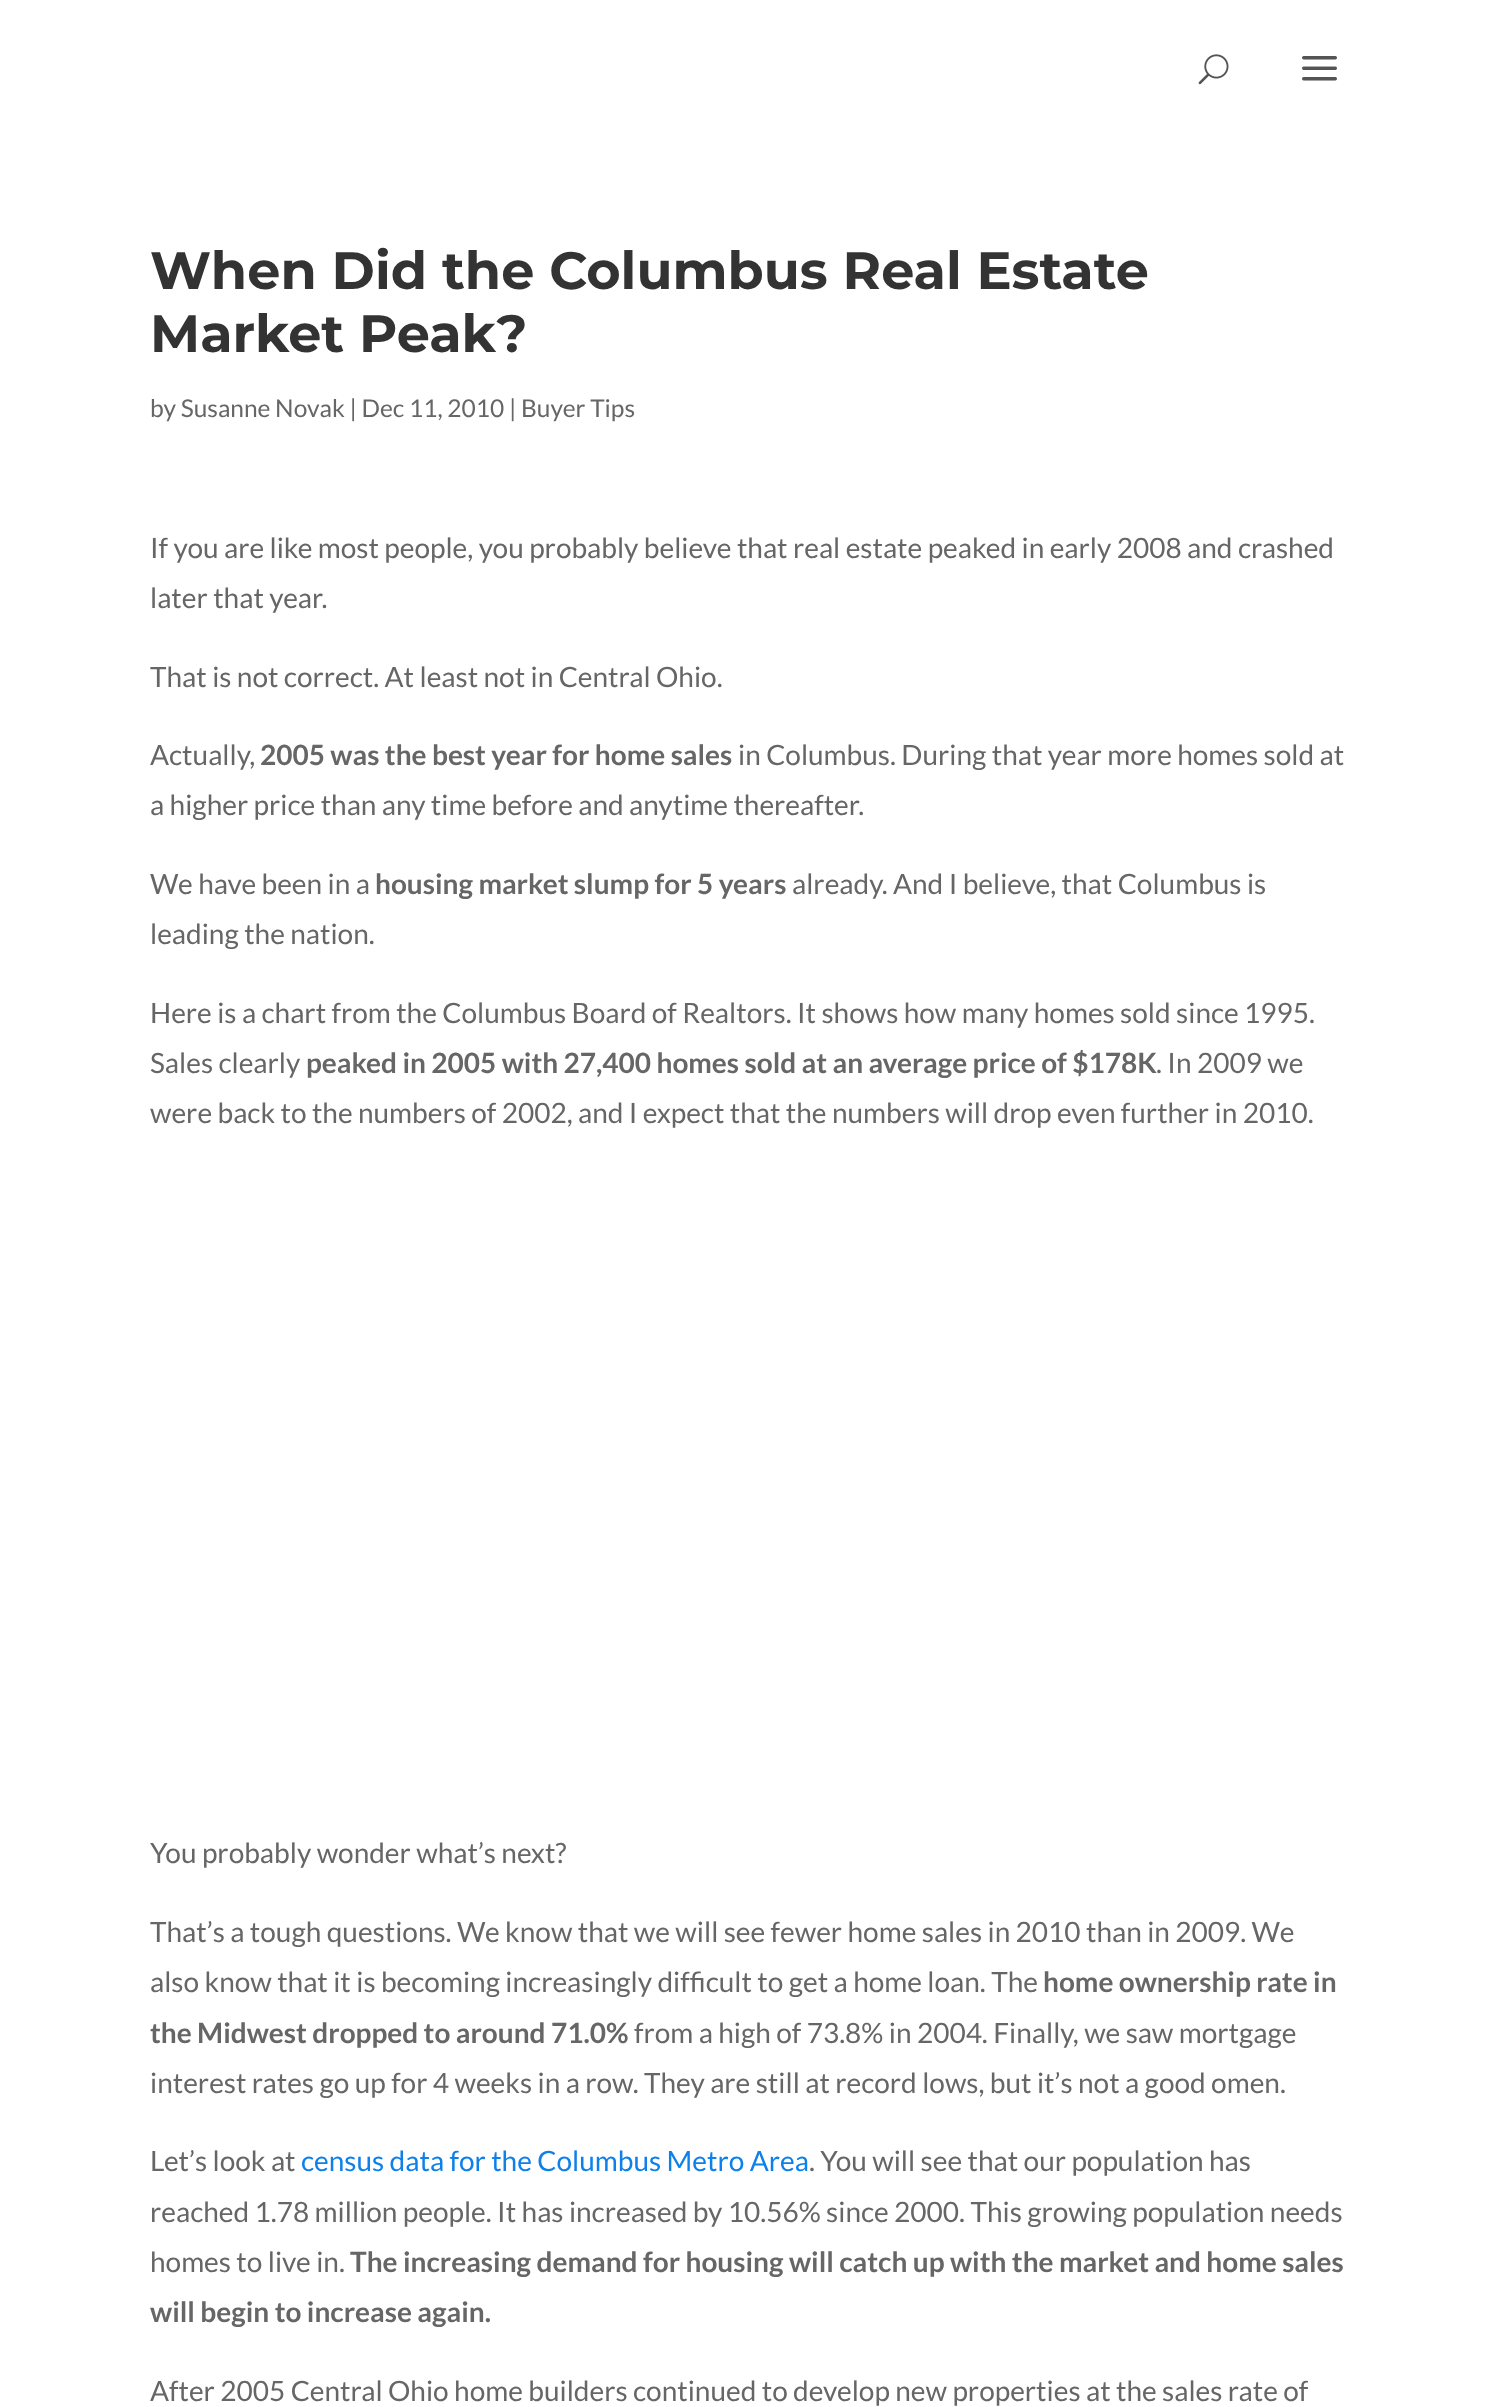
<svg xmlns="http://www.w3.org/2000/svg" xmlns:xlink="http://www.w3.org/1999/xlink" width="1497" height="2407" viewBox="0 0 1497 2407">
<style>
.cls-1{font:100 52.5px Montserrat;fill:#333333}
.cls-2{font:24.5px Lato;fill:#666666}
.cls-3{font:28px Lato;fill:#666666}
.cls-4{font:bold 28px Lato;fill:#666666}
.cls-5{font:28px Lato;fill:#0e80ea}
</style>
<rect width="100%" height="100%" fill="#ffffff"/>
<image xlink:href="image0.png" x="1198" y="54" width="31" height="31"/>
<image xlink:href="image1.png" x="1302" y="56" width="35" height="25"/>
<text class="cls-1"><tspan x="150" y="289">When Did the Columbus Real Estate</tspan><tspan x="150" y="352">Market Peak?</tspan></text>
<text class="cls-2" x="150" y="417">by Susanne Novak | Dec 11, 2010 | Buyer Tips</text>
<text class="cls-3"><tspan x="150" y="558">If you are like most people, you probably believe that real estate peaked in early 2008 and crashed</tspan><tspan x="150" y="608">later that year.</tspan></text>
<text class="cls-3" x="150" y="687">That is not correct. At least not in Central Ohio.</text>
<text class="cls-3" x="150" y="765">Actually,</text>
<text class="cls-4" x="260" y="765">2005 was the best year for home sales</text>
<text class="cls-3" x="738" y="765">in Columbus. During that year more homes sold at</text>
<text class="cls-3" x="150" y="815">a higher price than any time before and anytime thereafter.</text>
<text class="cls-3" x="150" y="894">We have been in a</text>
<text class="cls-4" x="375" y="894">housing market slump for 5 years</text>
<text class="cls-3" x="792" y="894">already. And I believe, that Columbus is</text>
<text class="cls-3" x="150" y="944">leading the nation.</text>
<text class="cls-3"><tspan x="150" y="1023">Here is a chart from the Columbus Board of Realtors. It shows how many homes sold since 1995.</tspan><tspan x="150" y="1073">Sales clearly</tspan></text>
<text class="cls-4" x="306" y="1073">peaked in 2005 with 27,400 homes sold at an average price of $178K</text>
<text class="cls-3" x="1156" y="1073">. In 2009 we</text>
<text class="cls-3" x="150" y="1123">were back to the numbers of 2002, and I expect that the numbers will drop even further in 2010.</text>
<text class="cls-3" x="150" y="1863">You probably wonder what’s next?</text>
<text class="cls-3"><tspan x="150" y="1942">That’s a tough questions. We know that we will see fewer home sales in 2010 than in 2009. We</tspan><tspan x="150" y="1992">also know that it is becoming increasingly difficult to get a home loan. The</tspan></text>
<text class="cls-4" x="1043" y="1992">home ownership rate in</text>
<text class="cls-4" x="150" y="2043">the Midwest dropped to around 71.0%</text>
<text class="cls-3" x="634" y="2043">from a high of 73.8% in 2004. Finally, we saw mortgage</text>
<text class="cls-3" x="150" y="2093">interest rates go up for 4 weeks in a row. They are still at record lows, but it’s not a good omen.</text>
<text class="cls-3" x="150" y="2171">Let’s look at</text>
<text class="cls-5" x="301" y="2171">census data for the Columbus Metro Area</text>
<text class="cls-3" x="809" y="2171">. You will see that our population has</text>
<text class="cls-3"><tspan x="150" y="2222">reached 1.78 million people. It has increased by 10.56% since 2000. This growing population needs</tspan><tspan x="150" y="2272">homes to live in.</tspan></text>
<text class="cls-4" x="350" y="2272">The increasing demand for housing will catch up with the market and home sales</text>
<text class="cls-4" x="150" y="2322">will begin to increase again.</text>
<text class="cls-3" x="150" y="2401">After 2005 Central Ohio home builders continued to develop new properties at the sales rate of</text>
</svg>
